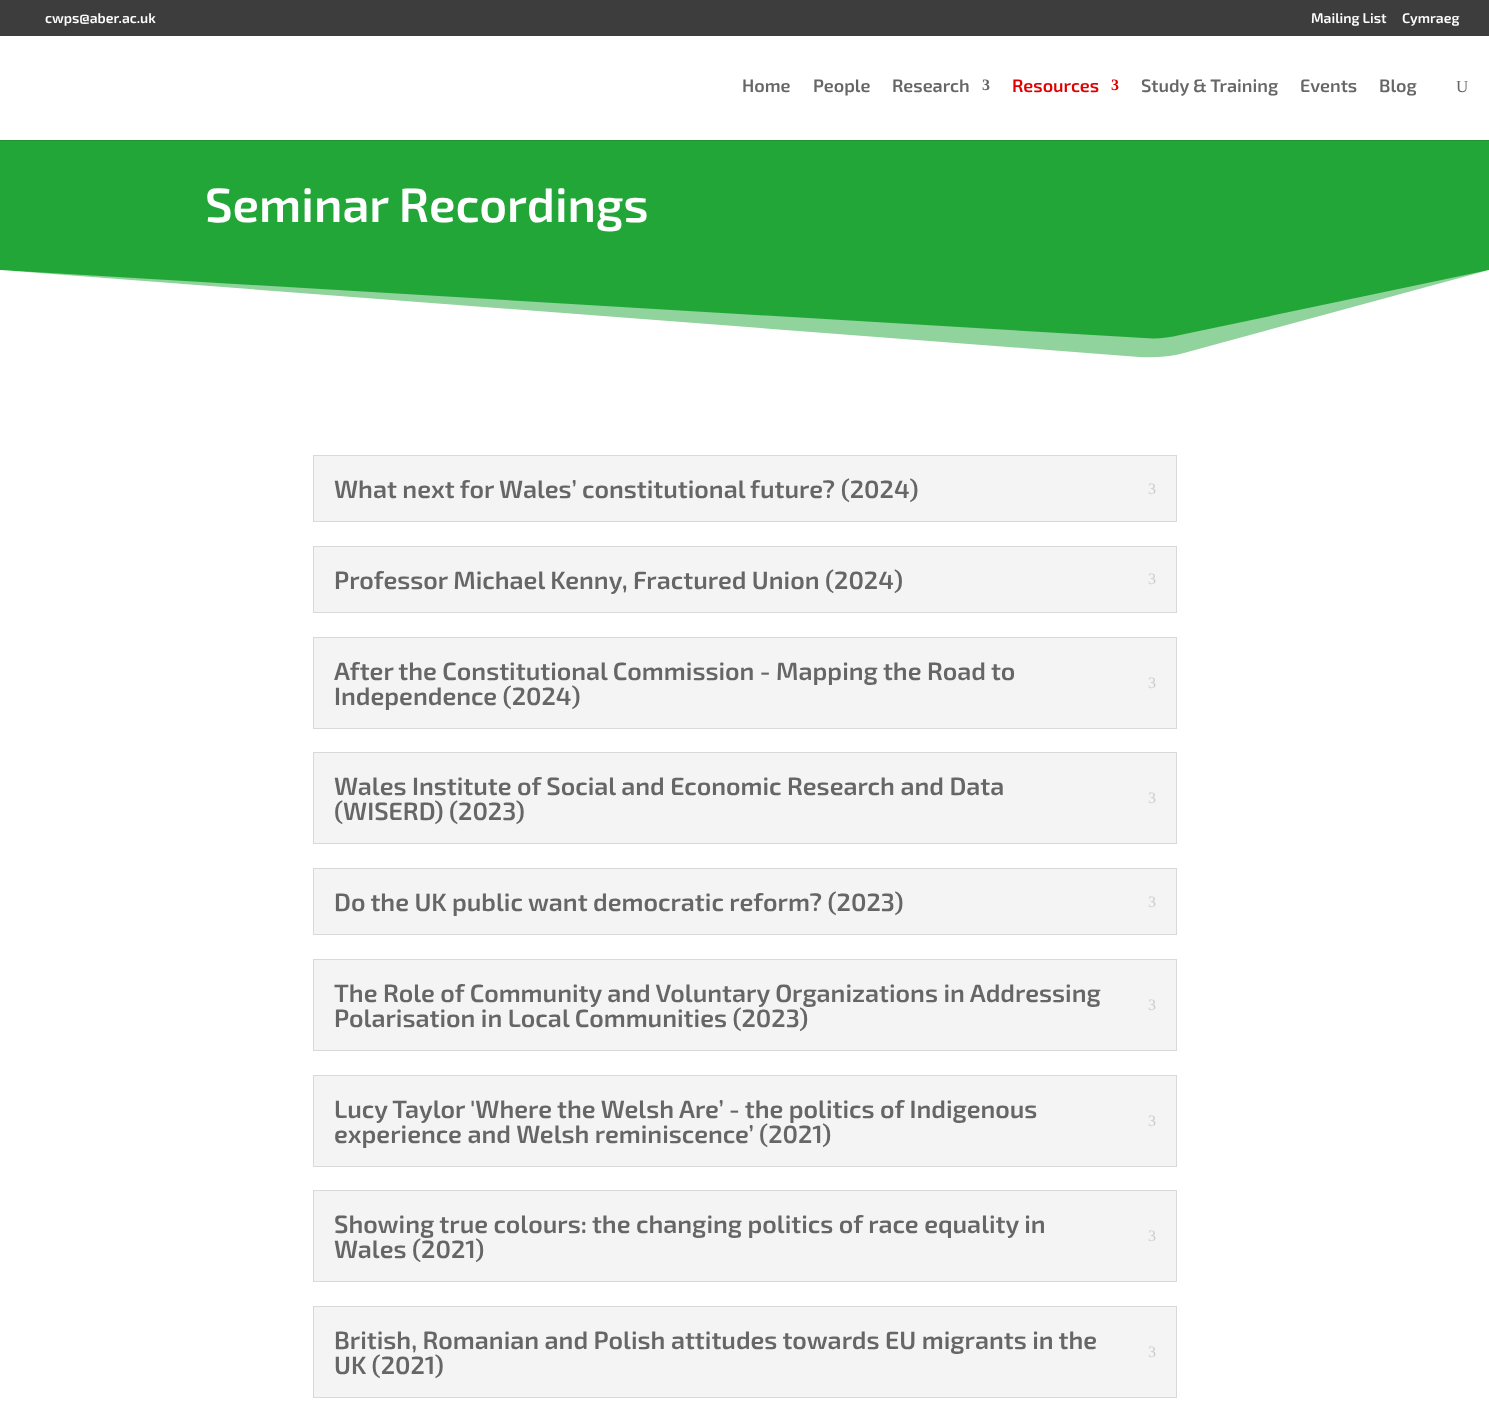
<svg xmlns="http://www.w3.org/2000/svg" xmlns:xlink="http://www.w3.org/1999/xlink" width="1489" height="1410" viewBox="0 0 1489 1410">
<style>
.cls-1{font:600 14px 'Exo 2';fill:#ffffff}
.cls-2{font:600 18px 'Exo 2';fill:#666666}
.cls-3{font:bold 16px Liberation Serif;fill:#666666}
.cls-4{font:600 18px 'Exo 2';fill:#e00000}
.cls-5{font:bold 16px Liberation Serif;fill:#e00000}
.cls-6{font:17px Liberation Serif;fill:#666666}
.cls-7{font:600 48px 'Exo 2';fill:#ffffff}
.cls-8{font:600 25px 'Exo 2';fill:#666666}
.cls-9{font:16px Liberation Serif;fill:#cccccc}
</style>
<rect width="100%" height="100%" fill="#ffffff"/>
<rect fill="#3d3d3d" x="0" y="0" width="1489" height="36"/>
<rect fill="#209532" x="0" y="140" width="1489" height="1"/>
<rect fill="#23a638" x="0" y="141" width="1489" height="198"/>
<path fill="#91d39c" d="M1489 270L1180 335C1168 338 1156 339 1144 338L0 270V370H1489Z"/>
<path fill="#ffffff" d="M1489 270L1184 353C1170 357 1154 358 1139 357L0 270V370H1489Z"/>
<rect fill="#f4f4f4" stroke="#d9d9d9" x="313.5" y="455.5" width="863" height="66"/>
<rect fill="#f4f4f4" stroke="#d9d9d9" x="313.5" y="546.5" width="863" height="66"/>
<rect fill="#f4f4f4" stroke="#d9d9d9" x="313.5" y="637.5" width="863" height="91"/>
<rect fill="#f4f4f4" stroke="#d9d9d9" x="313.5" y="752.5" width="863" height="91"/>
<rect fill="#f4f4f4" stroke="#d9d9d9" x="313.5" y="868.5" width="863" height="66"/>
<rect fill="#f4f4f4" stroke="#d9d9d9" x="313.5" y="959.5" width="863" height="91"/>
<rect fill="#f4f4f4" stroke="#d9d9d9" x="313.5" y="1075.5" width="863" height="91"/>
<rect fill="#f4f4f4" stroke="#d9d9d9" x="313.5" y="1190.5" width="863" height="91"/>
<rect fill="#f4f4f4" stroke="#d9d9d9" x="313.5" y="1306.5" width="863" height="91"/>
<text class="cls-1" x="45" y="23">cwps@aber.ac.uk</text>
<text class="cls-1" x="1311" y="23">Mailing List</text>
<text class="cls-1" x="1402" y="23">Cymraeg</text>
<text class="cls-2" x="742" y="92">Home</text>
<text class="cls-2" x="813" y="92">People</text>
<text class="cls-2" x="892" y="92">Research</text>
<text class="cls-3" x="982" y="90">3</text>
<text class="cls-4" x="1012" y="92">Resources</text>
<text class="cls-5" x="1111" y="90">3</text>
<text class="cls-2" x="1141" y="92">Study &amp; Training</text>
<text class="cls-2" x="1300" y="92">Events</text>
<text class="cls-2" x="1379" y="92">Blog</text>
<text class="cls-6" x="1456" y="92">U</text>
<text class="cls-7" x="205" y="222">Seminar Recordings</text>
<text class="cls-8" x="334" y="498">What next for Wales’ constitutional future? (2024)</text>
<text class="cls-9" x="1148" y="494">3</text>
<text class="cls-8" x="334" y="589">Professor Michael Kenny, Fractured Union (2024)</text>
<text class="cls-9" x="1148" y="584">3</text>
<text class="cls-8" x="334" y="680">After the Constitutional Commission - Mapping the Road to</text>
<text class="cls-9" x="1148" y="688">3</text>
<text class="cls-8" x="334" y="705">Independence (2024)</text>
<text class="cls-8" x="334" y="795">Wales Institute of Social and Economic Research and Data</text>
<text class="cls-9" x="1148" y="803">3</text>
<text class="cls-8" x="334" y="820">(WISERD) (2023)</text>
<text class="cls-8" x="334" y="911">Do the UK public want democratic reform? (2023)</text>
<text class="cls-9" x="1148" y="907">3</text>
<text class="cls-8" x="334" y="1002">The Role of Community and Voluntary Organizations in Addressing</text>
<text class="cls-9" x="1148" y="1010">3</text>
<text class="cls-8" x="334" y="1027">Polarisation in Local Communities (2023)</text>
<text class="cls-8" x="334" y="1118">Lucy Taylor 'Where the Welsh Are’ - the politics of Indigenous</text>
<text class="cls-9" x="1148" y="1126">3</text>
<text class="cls-8" x="334" y="1143">experience and Welsh reminiscence’ (2021)</text>
<text class="cls-8" x="334" y="1233">Showing true colours: the changing politics of race equality in</text>
<text class="cls-9" x="1148" y="1241">3</text>
<text class="cls-8" x="334" y="1258">Wales (2021)</text>
<text class="cls-8" x="334" y="1349">British, Romanian and Polish attitudes towards EU migrants in the</text>
<text class="cls-9" x="1148" y="1357">3</text>
<text class="cls-8" x="334" y="1374">UK (2021)</text>
</svg>
